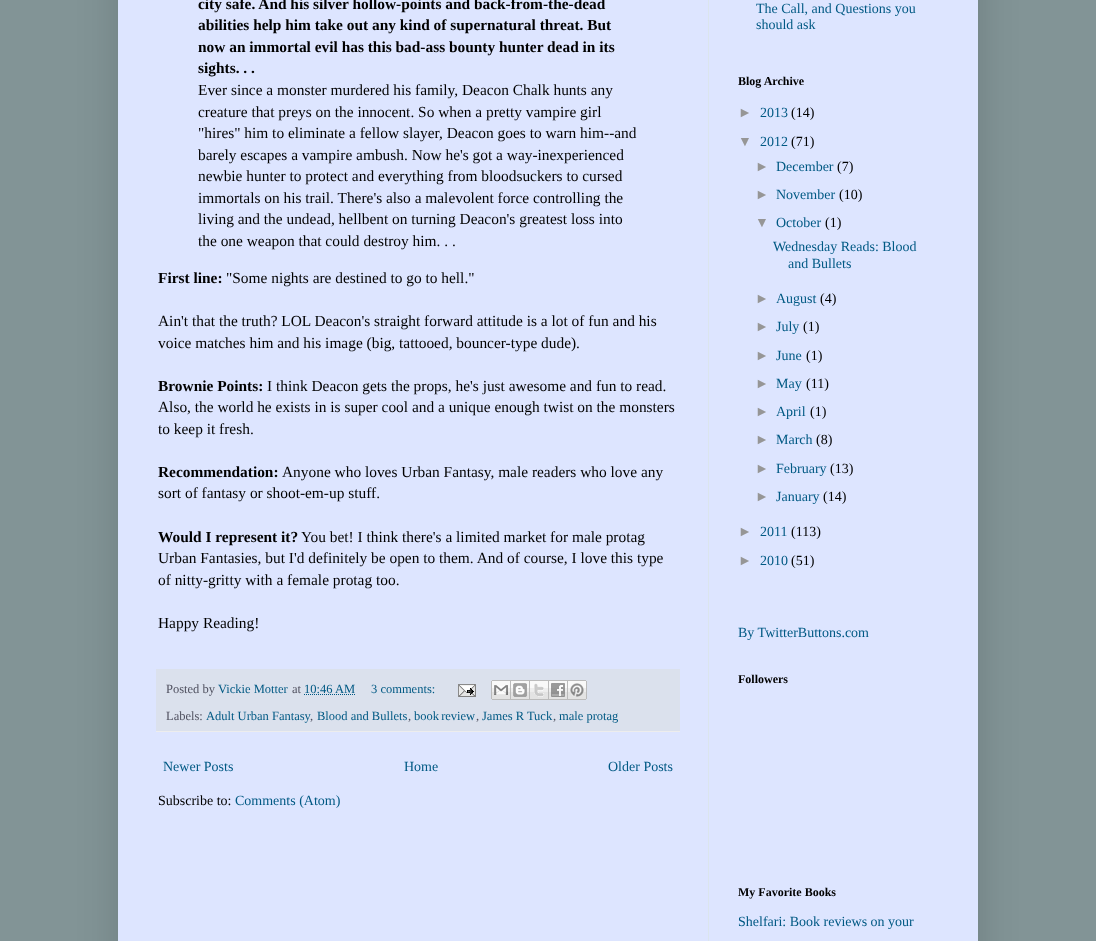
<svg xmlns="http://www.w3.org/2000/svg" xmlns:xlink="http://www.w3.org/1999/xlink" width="1096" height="941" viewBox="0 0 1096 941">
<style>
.cls-1{font:bold 15.4px Liberation Serif;fill:#000000}
.cls-2{font:15.4px Liberation Serif;fill:#000000}
.cls-3{font:12.5px Liberation Serif;fill:#4f505f}
.cls-4{font:12.5px Liberation Serif;fill:#005984}
.cls-5{font:14px Liberation Serif;fill:#005984}
.cls-6{font:14px Liberation Serif;fill:#000000}
.cls-7{font:bold 12px Liberation Serif;fill:#000000}
.cls-8{font:14px Liberation Sans;fill:#969696}
</style>
<rect width="100%" height="100%" fill="#829496"/>
<rect fill="#000000" fill-opacity="0.15" filter="blur(20px)" x="118" y="-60" width="860" height="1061"/>
<rect fill="#dde5ff" x="118" y="0" width="860" height="941"/>
<rect fill="#dbe1ed" x="156" y="669" width="524" height="62"/>
<rect fill="#ededed" x="156" y="731" width="524" height="1"/>
<path fill="none" stroke="#005984" stroke-dasharray="1 1" d="M304 694.5H355.5"/>
<image xlink:href="image0.png" x="458" y="684" width="18" height="13"/>
<image xlink:href="image1.png" x="491" y="680" width="20" height="20"/>
<image xlink:href="image2.png" x="511" y="680" width="19" height="20"/>
<image xlink:href="image3.png" x="530" y="680" width="19" height="20"/>
<image xlink:href="image4.png" x="549" y="680" width="19" height="20"/>
<image xlink:href="image5.png" x="568" y="680" width="19" height="20"/>
<rect fill="#dbe5ed" x="708" y="0" width="1" height="941"/>
<text class="cls-1"><tspan x="198" y="9">city safe. And his silver hollow-points and back-from-the-dead</tspan><tspan x="198" y="30">abilities help him take out any kind of supernatural threat. But</tspan><tspan x="198" y="52">now an immortal evil has this bad-ass bounty hunter dead in its</tspan><tspan x="198" y="73">sights. . .</tspan></text>
<text class="cls-2"><tspan x="198" y="95">Ever since a monster murdered his family, Deacon Chalk hunts any</tspan><tspan x="198" y="117">creature that preys on the innocent. So when a pretty vampire girl</tspan><tspan x="198" y="138">"hires" him to eliminate a fellow slayer, Deacon goes to warn him--and</tspan><tspan x="198" y="160">barely escapes a vampire ambush. Now he's got a way-inexperienced</tspan><tspan x="198" y="181">newbie hunter to protect and everything from bloodsuckers to cursed</tspan><tspan x="198" y="203">immortals on his trail. There's also a malevolent force controlling the</tspan><tspan x="198" y="224">living and the undead, hellbent on turning Deacon's greatest loss into</tspan><tspan x="198" y="246">the one weapon that could destroy him. . .</tspan></text>
<text class="cls-1" x="158" y="283">First line:</text>
<text class="cls-2" x="226" y="283">"Some nights are destined to go to hell."</text>
<text class="cls-2"><tspan x="158" y="326">Ain't that the truth? LOL Deacon's straight forward attitude is a lot of fun and his</tspan><tspan x="158" y="348">voice matches him and his image (big, tattooed, bouncer-type dude).</tspan></text>
<text class="cls-1" x="158" y="391">Brownie Points:</text>
<text class="cls-2" x="267" y="391">I think Deacon gets the props, he's just awesome and fun to read.</text>
<text class="cls-2"><tspan x="158" y="412">Also, the world he exists in is super cool and a unique enough twist on the monsters</tspan><tspan x="158" y="434">to keep it fresh.</tspan></text>
<text class="cls-1" x="158" y="477">Recommendation:</text>
<text class="cls-2" x="282" y="477">Anyone who loves Urban Fantasy, male readers who love any</text>
<text class="cls-2" x="158" y="498">sort of fantasy or shoot-em-up stuff.</text>
<text class="cls-1" x="158" y="542">Would I represent it?</text>
<text class="cls-2" x="301" y="542">You bet! I think there's a limited market for male protag</text>
<text class="cls-2"><tspan x="158" y="563">Urban Fantasies, but I'd definitely be open to them. And of course, I love this type</tspan><tspan x="158" y="585">of nitty-gritty with a female protag too.</tspan></text>
<text class="cls-2" x="158" y="628">Happy Reading!</text>
<text class="cls-3" x="166" y="693">Posted by</text>
<text class="cls-4" x="218" y="693">Vickie Motter</text>
<text class="cls-3" x="292" y="693">at</text>
<text class="cls-4" x="304" y="693">10:46 AM</text>
<text class="cls-4" x="371" y="693">3 comments:</text>
<text class="cls-3" x="166" y="720">Labels:</text>
<text class="cls-4" x="206" y="720">Adult Urban Fantasy</text>
<text class="cls-3" x="310" y="720">,</text>
<text class="cls-4" x="317" y="720">Blood and Bullets</text>
<text class="cls-3" x="408" y="720">,</text>
<text class="cls-4" x="414" y="720" word-spacing="-1">book review</text>
<text class="cls-3" x="476" y="720">,</text>
<text class="cls-4" x="482" y="720">James R Tuck</text>
<text class="cls-3" x="553" y="720">,</text>
<text class="cls-4" x="559" y="720">male protag</text>
<text class="cls-5" x="163" y="771">Newer Posts</text>
<text class="cls-5" x="404" y="771">Home</text>
<text class="cls-5" x="608" y="771">Older Posts</text>
<text class="cls-6" x="158" y="805">Subscribe to:</text>
<text class="cls-5" x="235" y="805">Comments (Atom)</text>
<text class="cls-5"><tspan x="756" y="13">The Call, and Questions you</tspan><tspan x="756" y="29">should ask</tspan></text>
<text class="cls-7" x="738" y="85">Blog Archive</text>
<text class="cls-8" x="738" y="117">►</text>
<text class="cls-5" x="760" y="117">2013</text>
<text class="cls-6" x="791" y="117">(14)</text>
<text class="cls-8" x="738" y="146">▼</text>
<text class="cls-5" x="760" y="146">2012</text>
<text class="cls-6" x="791" y="146">(71)</text>
<text class="cls-8" x="755" y="171">►</text>
<text class="cls-5" x="776" y="171">December</text>
<text class="cls-6" x="837" y="171">(7)</text>
<text class="cls-8" x="755" y="199">►</text>
<text class="cls-5" x="776" y="199">November</text>
<text class="cls-6" x="839" y="199">(10)</text>
<text class="cls-8" x="755" y="227">▼</text>
<text class="cls-5" x="776" y="227">October</text>
<text class="cls-6" x="825" y="227">(1)</text>
<text class="cls-5" x="773" y="251">Wednesday Reads: Blood</text>
<text class="cls-5" x="788" y="268">and Bullets</text>
<text class="cls-8" x="755" y="303">►</text>
<text class="cls-5" x="776" y="303">August</text>
<text class="cls-6" x="820" y="303">(4)</text>
<text class="cls-8" x="755" y="331">►</text>
<text class="cls-5" x="776" y="331">July</text>
<text class="cls-6" x="803" y="331">(1)</text>
<text class="cls-8" x="755" y="360">►</text>
<text class="cls-5" x="776" y="360">June</text>
<text class="cls-6" x="806" y="360">(1)</text>
<text class="cls-8" x="755" y="388">►</text>
<text class="cls-5" x="776" y="388">May</text>
<text class="cls-6" x="806" y="388">(11)</text>
<text class="cls-8" x="755" y="416">►</text>
<text class="cls-5" x="776" y="416">April</text>
<text class="cls-6" x="810" y="416">(1)</text>
<text class="cls-8" x="755" y="444">►</text>
<text class="cls-5" x="776" y="444">March</text>
<text class="cls-6" x="816" y="444">(8)</text>
<text class="cls-8" x="755" y="473">►</text>
<text class="cls-5" x="776" y="473">February</text>
<text class="cls-6" x="830" y="473">(13)</text>
<text class="cls-8" x="755" y="501">►</text>
<text class="cls-5" x="776" y="501">January</text>
<text class="cls-6" x="823" y="501">(14)</text>
<text class="cls-8" x="738" y="536">►</text>
<text class="cls-5" x="760" y="536">2011</text>
<text class="cls-6" x="791" y="536">(113)</text>
<text class="cls-8" x="738" y="565">►</text>
<text class="cls-5" x="760" y="565">2010</text>
<text class="cls-6" x="791" y="565">(51)</text>
<text class="cls-5" x="738" y="637">By TwitterButtons.com</text>
<text class="cls-7" x="738" y="683">Followers</text>
<text class="cls-7" x="738" y="896">My Favorite Books</text>
<text class="cls-5" x="738" y="926">Shelfari: Book reviews on your</text>
</svg>
